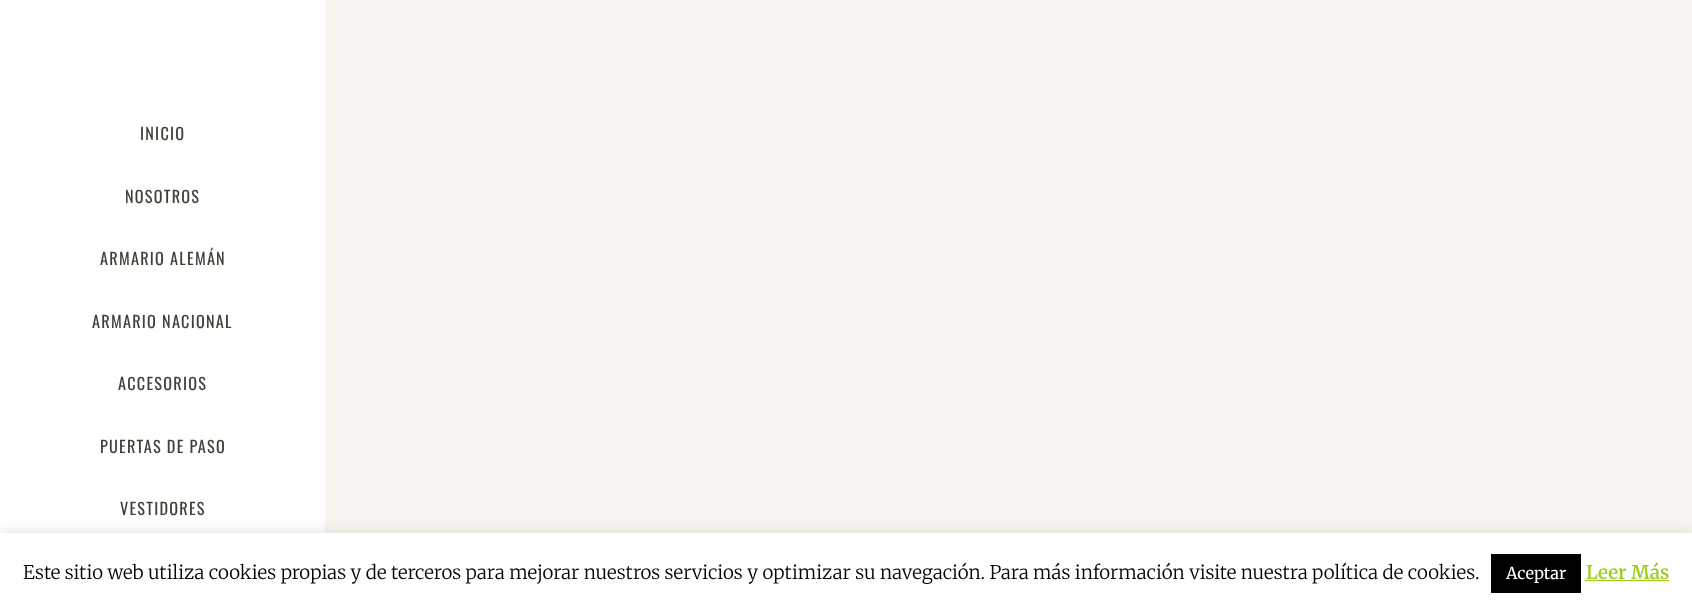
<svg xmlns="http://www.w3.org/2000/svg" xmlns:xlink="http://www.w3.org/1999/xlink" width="1692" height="607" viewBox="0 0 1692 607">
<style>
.cls-1{font:16.25px Oswald;letter-spacing:1.25px;fill:#444038}
.cls-2{font:300 18.75px Merriweather;fill:#000000}
.cls-3{font:16.25px Merriweather;fill:#ffffff}
.cls-4{font:600 18.75px Merriweather;fill:#9acd18}
</style>
<rect width="100%" height="100%" fill="#f8f5f0"/>
<rect fill="#ffffff" x="0" y="0" width="325" height="533"/>
<rect fill="#acabab" fill-opacity="0.3" filter="blur(6px)" x="0" y="531" width="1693" height="75"/>
<rect fill="#ffffff" x="0" y="533" width="1692" height="74"/>
<rect fill="#000000" x="1491" y="554" width="90" height="39"/>
<rect fill="#9acd18" x="1585" y="580" width="84" height="1"/>
<text class="cls-1" x="140" y="140">INICIO</text>
<text class="cls-1" x="125" y="203">NOSOTROS</text>
<text class="cls-1" x="100" y="265">ARMARIO ALEMÁN</text>
<text class="cls-1" x="92" y="328">ARMARIO NACIONAL</text>
<text class="cls-1" x="118" y="390">ACCESORIOS</text>
<text class="cls-1" x="100" y="453">PUERTAS DE PASO</text>
<text class="cls-1" x="120" y="515">VESTIDORES</text>
<text class="cls-2" x="23" y="579">Este sitio web utiliza cookies propias y de terceros para mejorar nuestros servicios y optimizar su navegación. Para más información visite nuestra política de cookies.</text>
<text class="cls-3" x="1506" y="579">Aceptar</text>
<text class="cls-4" x="1586" y="579">Leer Más</text>
</svg>
